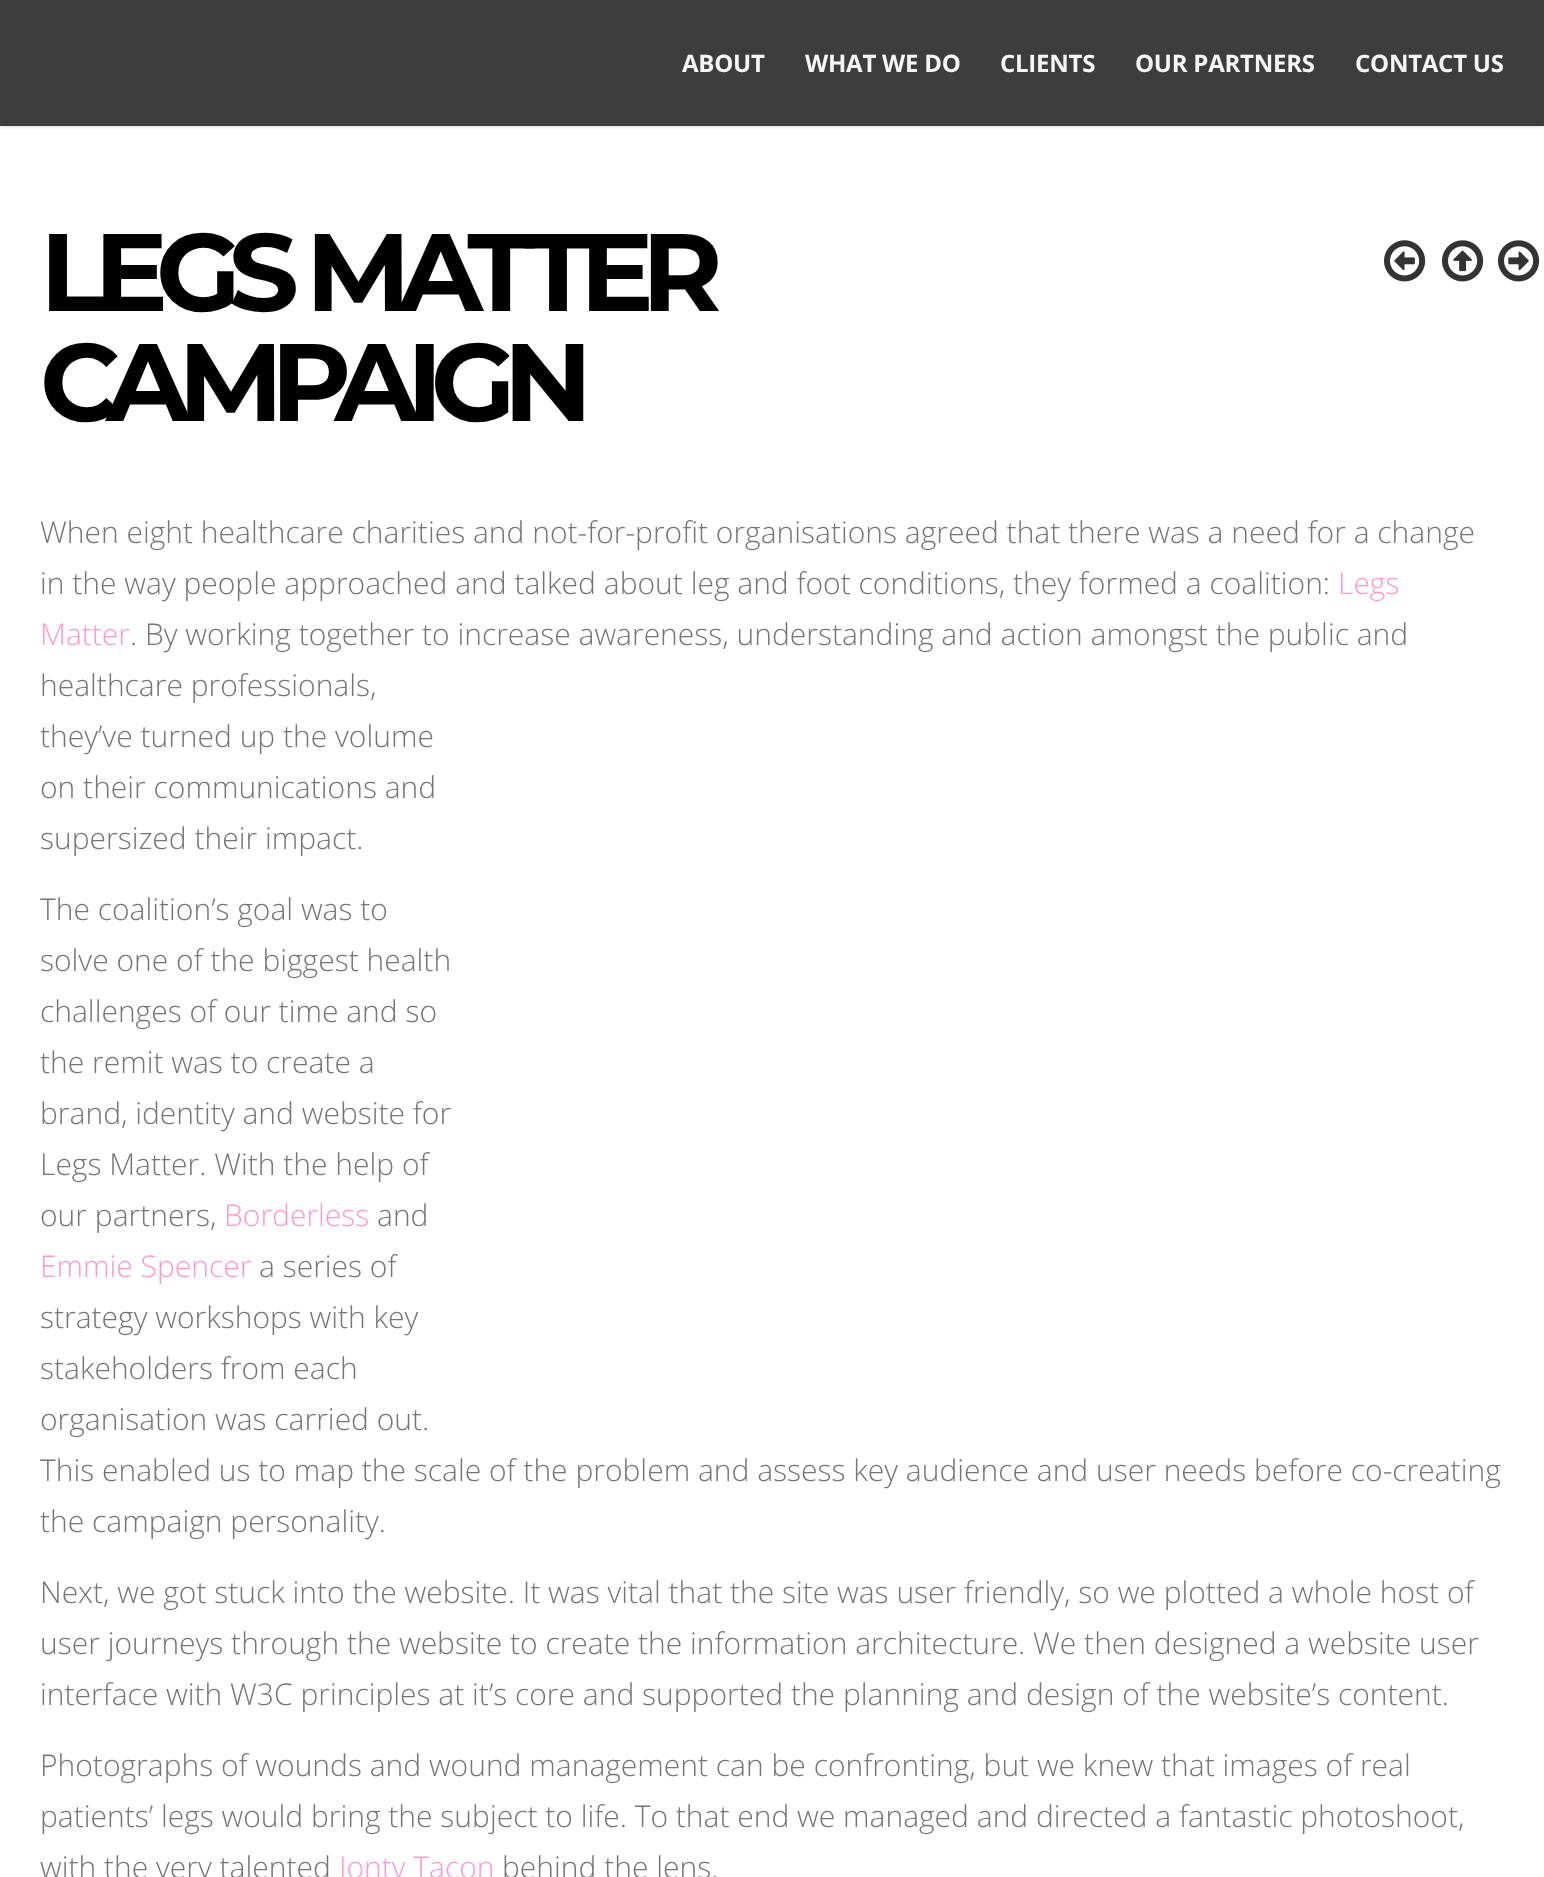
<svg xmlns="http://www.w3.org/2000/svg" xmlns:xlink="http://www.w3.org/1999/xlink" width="1544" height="1877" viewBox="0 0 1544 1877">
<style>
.cls-1{font:bold 24px Open Sans;letter-spacing:-0.25px;fill:#f5f5f5}
.cls-2{font:bold 110px Montserrat;letter-spacing:-12.1px;fill:#000000}
.cls-3{font:300 30px Open Sans;fill:#757575}
.cls-4{font:300 30px Open Sans;fill:#ff99cc}
</style>
<rect width="100%" height="100%" fill="#ffffff"/>
<rect fill="#000000" fill-opacity="0.2" filter="blur(2px)" x="0" y="0" width="1544" height="126"/>
<rect fill="#3d3d3d" x="0" y="0" width="1544" height="126"/>
<image xlink:href="image0.png" x="1384" y="240" width="42" height="42"/>
<image xlink:href="image1.png" x="1442" y="240" width="42" height="42"/>
<image xlink:href="image2.png" x="1498" y="240" width="42" height="42"/>
<text class="cls-1" x="682" y="72">ABOUT</text>
<text class="cls-1" x="805" y="72">WHAT WE DO</text>
<text class="cls-1" x="1000" y="72">CLIENTS</text>
<text class="cls-1" x="1135" y="72">OUR PARTNERS</text>
<text class="cls-1" x="1355" y="72">CONTACT US</text>
<text class="cls-2"><tspan x="40" y="311">LEGS MATTER</tspan><tspan x="40" y="421">CAMPAIGN</tspan></text>
<text class="cls-3"><tspan x="40" y="543">When eight healthcare charities and not-for-profit organisations agreed that there was a need for a change</tspan><tspan x="40" y="594">in the way people approached and talked about leg and foot conditions, they formed a coalition:</tspan></text>
<text class="cls-4" x="1338" y="594">Legs</text>
<text class="cls-4" x="40" y="645">Matter</text>
<text class="cls-3" x="130" y="645">. By working together to increase awareness, understanding and action amongst the public and</text>
<text class="cls-3"><tspan x="40" y="696">healthcare professionals,</tspan><tspan x="40" y="747">they’ve turned up the volume</tspan><tspan x="40" y="798">on their communications and</tspan><tspan x="40" y="849">supersized their impact.</tspan></text>
<text class="cls-3"><tspan x="40" y="920">The coalition’s goal was to</tspan><tspan x="40" y="971">solve one of the biggest health</tspan><tspan x="40" y="1022">challenges of our time and so</tspan><tspan x="40" y="1073">the remit was to create a</tspan><tspan x="40" y="1124">brand, identity and website for</tspan><tspan x="40" y="1175">Legs Matter. With the help of</tspan><tspan x="40" y="1226">our partners,</tspan></text>
<text class="cls-4" x="224" y="1226">Borderless</text>
<text class="cls-3" x="377" y="1226">and</text>
<text class="cls-4" x="40" y="1277">Emmie Spencer</text>
<text class="cls-3" x="259" y="1277">a series of</text>
<text class="cls-3"><tspan x="40" y="1328">strategy workshops with key</tspan><tspan x="40" y="1379">stakeholders from each</tspan><tspan x="40" y="1430">organisation was carried out.</tspan><tspan x="40" y="1481">This enabled us to map the scale of the problem and assess key audience and user needs before co-creating</tspan><tspan x="40" y="1532">the campaign personality.</tspan></text>
<text class="cls-3"><tspan x="40" y="1603">Next, we got stuck into the website. It was vital that the site was user friendly, so we plotted a whole host of</tspan><tspan x="40" y="1654">user journeys through the website to create the information architecture. We then designed a website user</tspan><tspan x="40" y="1705">interface with W3C principles at it’s core and supported the planning and design of the website’s content.</tspan></text>
<text class="cls-3"><tspan x="40" y="1776">Photographs of wounds and wound management can be confronting, but we knew that images of real</tspan><tspan x="40" y="1827">patients’ legs would bring the subject to life. To that end we managed and directed a fantastic photoshoot,</tspan><tspan x="40" y="1878">with the very talented</tspan></text>
<text class="cls-4" x="339" y="1878">Jonty Tacon</text>
<text class="cls-3" x="502" y="1878">behind the lens.</text>
</svg>
